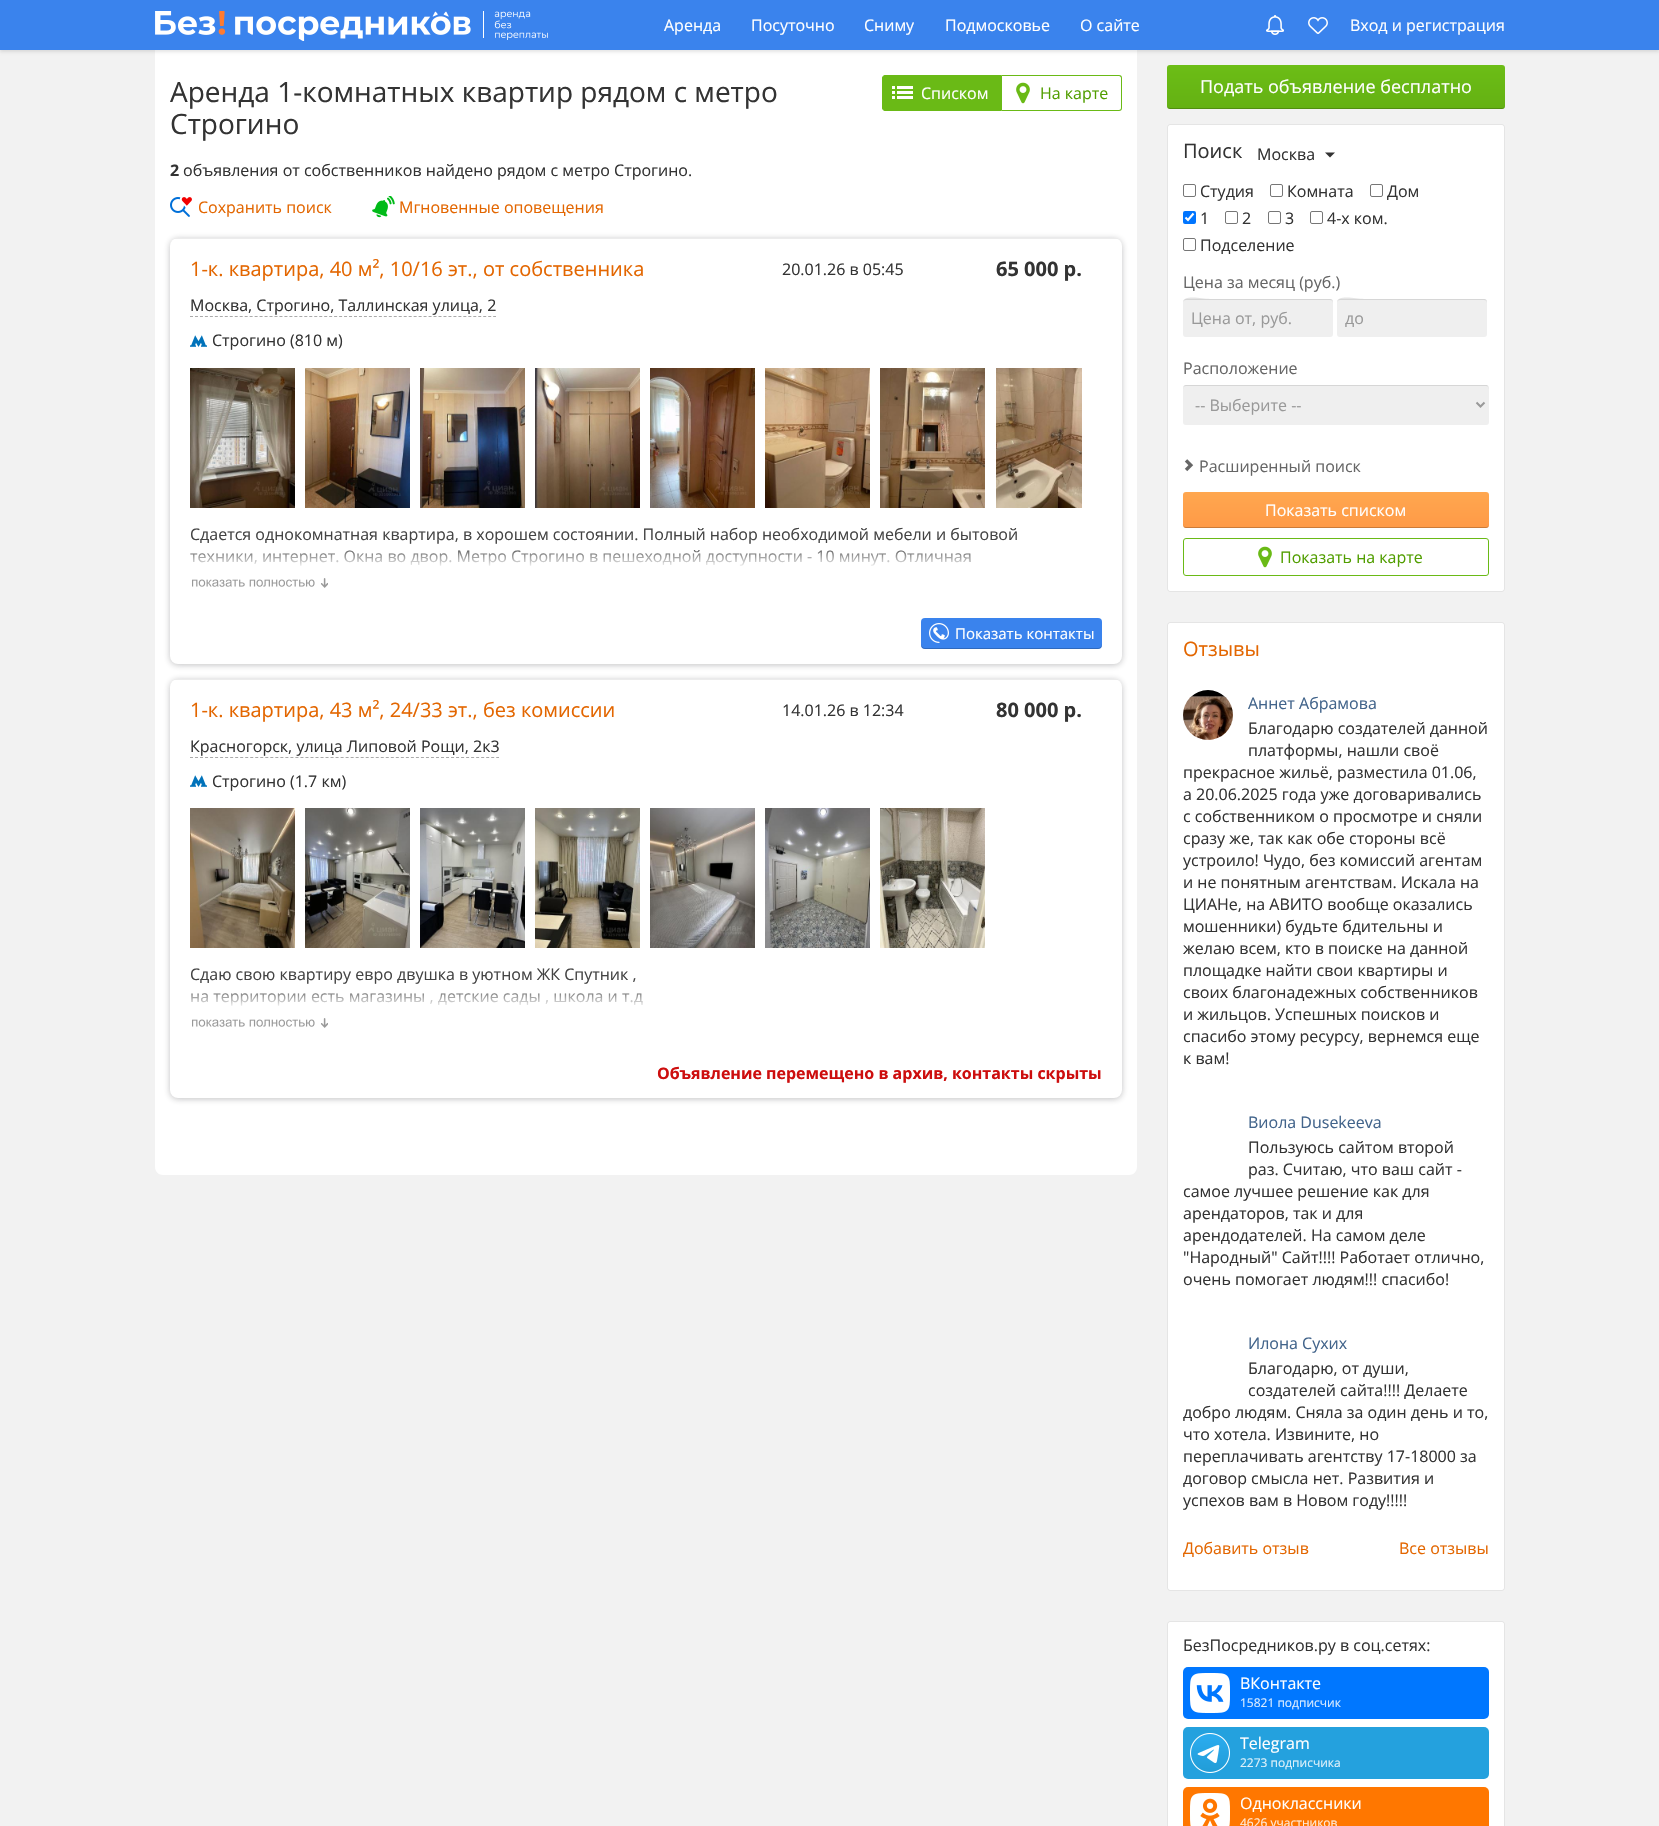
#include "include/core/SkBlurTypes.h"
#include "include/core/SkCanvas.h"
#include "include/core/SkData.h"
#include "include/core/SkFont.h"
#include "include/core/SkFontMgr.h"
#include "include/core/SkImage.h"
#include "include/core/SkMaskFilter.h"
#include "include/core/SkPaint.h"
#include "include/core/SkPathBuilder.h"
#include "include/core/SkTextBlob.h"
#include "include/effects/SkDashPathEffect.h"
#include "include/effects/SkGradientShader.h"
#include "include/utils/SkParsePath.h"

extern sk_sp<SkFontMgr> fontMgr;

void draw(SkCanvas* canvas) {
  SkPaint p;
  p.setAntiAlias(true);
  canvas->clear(SkColorSetRGB(242, 242, 242));
  p.setColor(SK_ColorWHITE);
  canvas->drawPath(SkPathBuilder().moveTo(155, 50).lineTo(1137, 50).lineTo(1137, 1167).cubicTo(1137, 1171.5f, 1133.5f, 1175, 1129, 1175).lineTo(163, 1175).cubicTo(158.5f, 1175, 155, 1171.5f, 155, 1167).close().detach(), p);
  p.setColor(SkColorSetARGB(26, 0, 0, 0));
  p.setMaskFilter(SkMaskFilter::MakeBlur(kNormal_SkBlurStyle, 1.5f));
  canvas->drawRect(SkRect::MakeLTRB(0, 2, 1659, 52), p);
  p.setMaskFilter(nullptr);
  p.setColor(SkColorSetRGB(58, 131, 237));
  canvas->drawRect(SkRect::MakeLTRB(0, 0, 1659, 50), p);
  canvas->drawImageRect(SkImages::DeferredFromEncodedData(SkData::MakeFromFileName("images/1.png")), SkRect::MakeLTRB(155, 11, 548, 41), SkSamplingOptions());
  canvas->drawImageRect(SkImages::DeferredFromEncodedData(SkData::MakeFromFileName("images/2.png")), SkRect::MakeLTRB(1266, 15, 1284, 35), SkSamplingOptions());
  canvas->drawImageRect(SkImages::DeferredFromEncodedData(SkData::MakeFromFileName("images/3.png")), SkRect::MakeLTRB(1308, 17, 1328, 34), SkSamplingOptions());
  p.setColor(SkColorSetRGB(106, 186, 22));
  canvas->drawPath(SkPathBuilder().moveTo(885, 75.5f).lineTo(1001.5f, 75.5f).lineTo(1001.5f, 110.5f).lineTo(885, 110.5f).cubicTo(883.5f, 110.5f, 882.5f, 109.5f, 882.5f, 108).lineTo(882.5f, 78).cubicTo(882.5f, 76.5f, 883.5f, 75.5f, 885, 75.5f).close().detach(), p);
  p.setStyle(SkPaint::kStroke_Style);
  p.setStrokeWidth(1);
  canvas->drawPath(SkPathBuilder().moveTo(885, 75.5f).lineTo(1001.5f, 75.5f).lineTo(1001.5f, 110.5f).lineTo(885, 110.5f).cubicTo(883.5f, 110.5f, 882.5f, 109.5f, 882.5f, 108).lineTo(882.5f, 78).cubicTo(882.5f, 76.5f, 883.5f, 75.5f, 885, 75.5f).close().detach(), p);
  canvas->drawImageRect(SkImages::DeferredFromEncodedData(SkData::MakeFromFileName("images/4.png")), SkRect::MakeLTRB(892, 86, 913, 99), SkSamplingOptions());
  p.setStyle(SkPaint::kFill_Style);
  canvas->drawPath(SkPathBuilder(SkPathFillType::kEvenOdd).moveTo(1002, 75).lineTo(1119, 75).cubicTo(1121, 75, 1122, 76, 1122, 78).lineTo(1122, 108).cubicTo(1122, 110, 1121, 111, 1119, 111).lineTo(1002, 111).close().moveTo(1002, 76).lineTo(1119, 76).cubicTo(1120, 76, 1121, 77, 1121, 78).lineTo(1121, 108).cubicTo(1121, 109, 1120, 110, 1119, 110).lineTo(1002, 110).close().detach(), p);
  canvas->drawImageRect(SkImages::DeferredFromEncodedData(SkData::MakeFromFileName("images/5.png")), SkRect::MakeLTRB(1016, 82, 1030, 104), SkSamplingOptions());
  canvas->drawImageRect(SkImages::DeferredFromEncodedData(SkData::MakeFromFileName("images/6.png")), SkRect::MakeLTRB(170, 197, 192, 217), SkSamplingOptions());
  canvas->drawImageRect(SkImages::DeferredFromEncodedData(SkData::MakeFromFileName("images/7.png")), SkRect::MakeLTRB(372, 196, 395, 218), SkSamplingOptions());
  p.setColor(SkColorSetARGB(71, 32, 33, 36));
  p.setMaskFilter(SkMaskFilter::MakeBlur(kNormal_SkBlurStyle, 3));
  canvas->drawRoundRect(SkRect::MakeLTRB(170, 239, 1122, 665), 8, 8, p);
  p.setMaskFilter(nullptr);
  p.setColor(SK_ColorWHITE);
  canvas->drawRoundRect(SkRect::MakeLTRB(170, 238, 1122, 664), 8, 8, p);
  p.setColor(SkColorSetRGB(236, 236, 236));
  canvas->drawRect(SkRect::MakeLTRB(174, 238, 1118, 239), p);
  p.setStyle(SkPaint::kStroke_Style);
  p.setColor(SkColorSetRGB(170, 170, 170));
  p.setPathEffect(SkDashPathEffect::Make({{3, 1.97f}}, 0));
  canvas->drawPath(SkPathBuilder().moveTo(190, 316.5f).lineTo(496, 316.5f).detach(), p);
  p.setPathEffect(nullptr);
  canvas->drawImageRect(SkImages::DeferredFromEncodedData(SkData::MakeFromFileName("images/8.png")), SkRect::MakeLTRB(190, 335, 207, 347), SkSamplingOptions());
  canvas->drawImageRect(SkImages::DeferredFromEncodedData(SkData::MakeFromFileName("images/9.png")), SkRect::MakeLTRB(190, 368, 295, 508), SkSamplingOptions());
  canvas->drawImageRect(SkImages::DeferredFromEncodedData(SkData::MakeFromFileName("images/10.png")), SkRect::MakeLTRB(305, 368, 410, 508), SkSamplingOptions());
  canvas->drawImageRect(SkImages::DeferredFromEncodedData(SkData::MakeFromFileName("images/11.png")), SkRect::MakeLTRB(420, 368, 525, 508), SkSamplingOptions());
  canvas->drawImageRect(SkImages::DeferredFromEncodedData(SkData::MakeFromFileName("images/12.png")), SkRect::MakeLTRB(535, 368, 640, 508), SkSamplingOptions());
  canvas->drawImageRect(SkImages::DeferredFromEncodedData(SkData::MakeFromFileName("images/13.png")), SkRect::MakeLTRB(650, 368, 755, 508), SkSamplingOptions());
  canvas->drawImageRect(SkImages::DeferredFromEncodedData(SkData::MakeFromFileName("images/14.png")), SkRect::MakeLTRB(765, 368, 870, 508), SkSamplingOptions());
  canvas->drawImageRect(SkImages::DeferredFromEncodedData(SkData::MakeFromFileName("images/15.png")), SkRect::MakeLTRB(880, 368, 985, 508), SkSamplingOptions());
  canvas->drawImageRect(SkImages::DeferredFromEncodedData(SkData::MakeFromFileName("images/16.png")), SkRect::MakeLTRB(996, 368, 1082, 508), SkSamplingOptions());
  canvas->drawImageRect(SkImages::DeferredFromEncodedData(SkData::MakeFromFileName("images/17.png")), SkRect::MakeLTRB(192, 578, 328, 588), SkSamplingOptions());
  p.setStyle(SkPaint::kFill_Style);
  p.setColor(SkColorSetRGB(58, 131, 237));
  canvas->drawRoundRect(SkRect::MakeLTRB(921, 618, 1102, 649), 4, 4, p);
  canvas->drawImageRect(SkImages::DeferredFromEncodedData(SkData::MakeFromFileName("images/18.png")), SkRect::MakeLTRB(929, 623, 949, 643), SkSamplingOptions());
  p.setColor(SkColorSetARGB(51, 0, 0, 0));
  canvas->drawPath(SkPathBuilder().moveTo(921, 644).lineTo(921, 645).cubicTo(921, 647, 923, 649, 925, 649).lineTo(1098, 649).cubicTo(1100, 649, 1102, 647, 1102, 645).lineTo(1102, 644).cubicTo(1102, 646, 1100, 648, 1098, 648).lineTo(925, 648).cubicTo(923, 648, 921, 646, 921, 644).close().detach(), p);
  p.setColor(SkColorSetARGB(71, 32, 33, 36));
  p.setMaskFilter(SkMaskFilter::MakeBlur(kNormal_SkBlurStyle, 3));
  canvas->drawRoundRect(SkRect::MakeLTRB(170, 680, 1122, 1099), 8, 8, p);
  p.setMaskFilter(nullptr);
  p.setColor(SK_ColorWHITE);
  canvas->drawRoundRect(SkRect::MakeLTRB(170, 679, 1122, 1098), 8, 8, p);
  p.setColor(SkColorSetRGB(236, 236, 236));
  canvas->drawRect(SkRect::MakeLTRB(174, 679, 1118, 680), p);
  p.setStyle(SkPaint::kStroke_Style);
  p.setColor(SkColorSetRGB(170, 170, 170));
  p.setPathEffect(SkDashPathEffect::Make({{3, 2.02f}}, 0));
  canvas->drawPath(SkPathBuilder().moveTo(190, 757.5f).lineTo(499, 757.5f).detach(), p);
  p.setPathEffect(nullptr);
  canvas->drawImageRect(SkImages::DeferredFromEncodedData(SkData::MakeFromFileName("images/8.png")), SkRect::MakeLTRB(190, 775, 207, 787), SkSamplingOptions());
  canvas->drawImageRect(SkImages::DeferredFromEncodedData(SkData::MakeFromFileName("images/19.png")), SkRect::MakeLTRB(190, 808, 295, 948), SkSamplingOptions());
  canvas->drawImageRect(SkImages::DeferredFromEncodedData(SkData::MakeFromFileName("images/20.png")), SkRect::MakeLTRB(305, 808, 410, 948), SkSamplingOptions());
  canvas->drawImageRect(SkImages::DeferredFromEncodedData(SkData::MakeFromFileName("images/21.png")), SkRect::MakeLTRB(420, 808, 525, 948), SkSamplingOptions());
  canvas->drawImageRect(SkImages::DeferredFromEncodedData(SkData::MakeFromFileName("images/22.png")), SkRect::MakeLTRB(535, 808, 640, 948), SkSamplingOptions());
  canvas->drawImageRect(SkImages::DeferredFromEncodedData(SkData::MakeFromFileName("images/23.png")), SkRect::MakeLTRB(650, 808, 755, 948), SkSamplingOptions());
  canvas->drawImageRect(SkImages::DeferredFromEncodedData(SkData::MakeFromFileName("images/24.png")), SkRect::MakeLTRB(765, 808, 870, 948), SkSamplingOptions());
  canvas->drawImageRect(SkImages::DeferredFromEncodedData(SkData::MakeFromFileName("images/25.png")), SkRect::MakeLTRB(880, 808, 985, 948), SkSamplingOptions());
  canvas->drawImageRect(SkImages::DeferredFromEncodedData(SkData::MakeFromFileName("images/17.png")), SkRect::MakeLTRB(192, 1018, 328, 1028), SkSamplingOptions());
  p.setStyle(SkPaint::kFill_Style);
  {
    const SkColor colors[] = {SkColorSetRGB(108, 189, 22), SkColorSetRGB(100, 177, 19)};
    const float stops[] = {0, 1};
    const SkPoint ends[] = {{1336, 65}, {1336, 109}};
    p.setShader(SkGradientShader::MakeLinear(ends, colors, stops, 2, SkTileMode::kClamp));
    p.setAlpha(255);
  }
  canvas->drawRoundRect(SkRect::MakeLTRB(1167, 65, 1505, 109), 3, 3, p);
  p.setShader(nullptr);
  p.setColor(SkColorSetARGB(51, 0, 0, 0));
  canvas->drawPath(SkPathBuilder().moveTo(1167, 105).cubicTo(1167, 107, 1168, 109, 1170, 109).lineTo(1502, 109).cubicTo(1504, 109, 1505, 107, 1505, 105).cubicTo(1505, 107, 1504, 108, 1502, 108).lineTo(1170, 108).cubicTo(1168, 108, 1167, 107, 1167, 105).close().detach(), p);
  p.setColor(SK_ColorWHITE);
  canvas->drawRoundRect(SkRect::MakeLTRB(1167, 124, 1505, 592), 3, 3, p);
  p.setStyle(SkPaint::kStroke_Style);
  p.setColor(SkColorSetARGB(26, 0, 0, 0));
  canvas->drawRoundRect(SkRect::MakeLTRB(1167.5f, 124.5f, 1504.5f, 591.5f), 2.5f, 2.5f, p);
  p.setStyle(SkPaint::kFill_Style);
  p.setColor(SkColorSetRGB(51, 51, 51));
  canvas->drawPath(SkPathBuilder().moveTo(1325, 152.5f).lineTo(1335, 152.5f).lineTo(1330, 157.5f).close().detach(), p);
  p.setStyle(SkPaint::kStroke_Style);
  p.setColor(SkColorSetRGB(118, 118, 118));
  canvas->drawRoundRect(SkRect::MakeLTRB(1183.5f, 184.5f, 1195.5f, 196.5f), 1.5f, 1.5f, p);
  canvas->drawRoundRect(SkRect::MakeLTRB(1270.5f, 184.5f, 1282.5f, 196.5f), 1.5f, 1.5f, p);
  canvas->drawRoundRect(SkRect::MakeLTRB(1370.5f, 184.5f, 1382.5f, 196.5f), 1.5f, 1.5f, p);
  p.setStyle(SkPaint::kFill_Style);
  p.setColor(SkColorSetRGB(0, 117, 255));
  canvas->drawRoundRect(SkRect::MakeLTRB(1183, 211, 1196, 224), 2, 2, p);
  p.setStyle(SkPaint::kStroke_Style);
  p.setStrokeWidth(2.1f);
  p.setColor(SK_ColorWHITE);
  canvas->drawPath(SkPathBuilder().moveTo(1185.5f, 217.5f).lineTo(1188, 220).lineTo(1193.5f, 213.5f).detach(), p);
  p.setStrokeWidth(1);
  p.setColor(SkColorSetRGB(118, 118, 118));
  canvas->drawRoundRect(SkRect::MakeLTRB(1225.5f, 211.5f, 1237.5f, 223.5f), 1.5f, 1.5f, p);
  canvas->drawRoundRect(SkRect::MakeLTRB(1268.5f, 211.5f, 1280.5f, 223.5f), 1.5f, 1.5f, p);
  canvas->drawRoundRect(SkRect::MakeLTRB(1310.5f, 211.5f, 1322.5f, 223.5f), 1.5f, 1.5f, p);
  canvas->drawRoundRect(SkRect::MakeLTRB(1183.5f, 238.5f, 1195.5f, 250.5f), 1.5f, 1.5f, p);
  p.setStyle(SkPaint::kFill_Style);
  p.setColor(SkColorSetRGB(239, 239, 239));
  canvas->drawRoundRect(SkRect::MakeLTRB(1183, 299, 1333, 337), 3, 3, p);
  p.setColor(SkColorSetARGB(26, 0, 0, 0));
  canvas->drawPath(SkPathBuilder().moveTo(1186, 300).lineTo(1330, 300).cubicTo(1332, 300, 1333, 301, 1333, 303).cubicTo(1333, 301, 1333, 300, 1331, 299).lineTo(1210, 299).cubicTo(1202, 299, 1183, 294, 1183, 303).cubicTo(1183, 301, 1184, 300, 1186, 300).close().detach(), p);
  p.setColor(SkColorSetRGB(239, 239, 239));
  canvas->drawRoundRect(SkRect::MakeLTRB(1337, 299, 1487, 337), 3, 3, p);
  p.setColor(SkColorSetARGB(26, 0, 0, 0));
  canvas->drawPath(SkPathBuilder().moveTo(1340, 300).lineTo(1484, 300).cubicTo(1486, 300, 1487, 301, 1487, 303).cubicTo(1487, 301, 1487, 300, 1485, 299).lineTo(1364, 299).cubicTo(1356, 299, 1337, 294, 1337, 303).cubicTo(1337, 301, 1338, 300, 1340, 300).close().detach(), p);
  p.setColor(SkColorSetRGB(239, 239, 239));
  canvas->drawRoundRect(SkRect::MakeLTRB(1183, 385, 1489, 425), 3, 3, p);
  p.setColor(SkColorSetARGB(26, 0, 0, 0));
  canvas->drawPath(SkPathBuilder().moveTo(1186, 386).lineTo(1486, 386).cubicTo(1488, 386, 1489, 387, 1489, 389).lineTo(1488, 386).lineTo(1487, 385).lineTo(1186, 385).cubicTo(1184, 385, 1183, 387, 1183, 389).cubicTo(1183, 387, 1184, 386, 1186, 386).close().detach(), p);
  p.setStyle(SkPaint::kStroke_Style);
  p.setStrokeWidth(2);
  p.setColor(SkColorSetRGB(153, 153, 153));
  canvas->drawPath(SkPathBuilder().moveTo(1476.5f, 402.5f).lineTo(1480.5f, 406.5f).lineTo(1484.5f, 402.5f).detach(), p);
  canvas->drawImageRect(SkImages::DeferredFromEncodedData(SkData::MakeFromFileName("images/26.png")), SkRect::MakeLTRB(1184, 459, 1194, 472), SkSamplingOptions());
  p.setStyle(SkPaint::kFill_Style);
  {
    const SkColor colors[] = {SkColorSetRGB(255, 167, 79), SkColorSetRGB(255, 154, 71)};
    const float stops[] = {0, 1};
    const SkPoint ends[] = {{1336, 492}, {1336, 528}};
    p.setShader(SkGradientShader::MakeLinear(ends, colors, stops, 2, SkTileMode::kClamp));
    p.setAlpha(255);
  }
  canvas->drawRoundRect(SkRect::MakeLTRB(1183, 492, 1489, 528), 3, 3, p);
  p.setShader(nullptr);
  p.setColor(SkColorSetARGB(51, 0, 0, 0));
  canvas->drawPath(SkPathBuilder().moveTo(1183, 524).lineTo(1184, 527).lineTo(1185, 528).lineTo(1486, 528).cubicTo(1488, 528, 1489, 526, 1489, 524).cubicTo(1489, 526, 1488, 527, 1486, 527).lineTo(1186, 527).cubicTo(1184, 527, 1183, 526, 1183, 524).close().detach(), p);
  p.setStyle(SkPaint::kStroke_Style);
  p.setStrokeWidth(1);
  p.setColor(SkColorSetRGB(106, 186, 22));
  canvas->drawRoundRect(SkRect::MakeLTRB(1183.5f, 538.5f, 1488.5f, 575.5f), 2.5f, 2.5f, p);
  canvas->drawImageRect(SkImages::DeferredFromEncodedData(SkData::MakeFromFileName("images/5.png")), SkRect::MakeLTRB(1258, 546, 1272, 568), SkSamplingOptions());
  p.setStyle(SkPaint::kFill_Style);
  p.setColor(SK_ColorWHITE);
  canvas->drawRoundRect(SkRect::MakeLTRB(1167, 622, 1505, 1591), 3, 3, p);
  p.setStyle(SkPaint::kStroke_Style);
  p.setColor(SkColorSetARGB(26, 0, 0, 0));
  canvas->drawRoundRect(SkRect::MakeLTRB(1167.5f, 622.5f, 1504.5f, 1590.5f), 2.5f, 2.5f, p);
  canvas->drawImageRect(SkImages::DeferredFromEncodedData(SkData::MakeFromFileName("images/27.png")), SkRect::MakeLTRB(1183, 690, 1233, 740), SkSamplingOptions());
  p.setStyle(SkPaint::kFill_Style);
  p.setColor(SK_ColorWHITE);
  canvas->drawRoundRect(SkRect::MakeLTRB(1167, 1621, 1505, 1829), 3, 3, p);
  p.setStyle(SkPaint::kStroke_Style);
  p.setColor(SkColorSetARGB(26, 0, 0, 0));
  canvas->drawRoundRect(SkRect::MakeLTRB(1167.5f, 1621.5f, 1504.5f, 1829.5f), 2.5f, 2.5f, p);
  p.setStyle(SkPaint::kFill_Style);
  p.setColor(SkColorSetRGB(0, 119, 255));
  canvas->drawRoundRect(SkRect::MakeLTRB(1183, 1667, 1489, 1719), 5, 5, p);
  canvas->drawImageRect(SkImages::DeferredFromEncodedData(SkData::MakeFromFileName("images/28.png")), SkRect::MakeLTRB(1190, 1673, 1230, 1713), SkSamplingOptions());
  p.setColor(SkColorSetRGB(36, 161, 222));
  canvas->drawRoundRect(SkRect::MakeLTRB(1183, 1727, 1489, 1779), 5, 5, p);
  canvas->drawImageRect(SkImages::DeferredFromEncodedData(SkData::MakeFromFileName("images/29.png")), SkRect::MakeLTRB(1190, 1733, 1230, 1773), SkSamplingOptions());
  p.setColor(SkColorSetRGB(255, 119, 0));
  canvas->drawRoundRect(SkRect::MakeLTRB(1183, 1787, 1489, 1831), 5, 5, p);
  canvas->drawImageRect(SkImages::DeferredFromEncodedData(SkData::MakeFromFileName("images/30.png")), SkRect::MakeLTRB(1190, 1793, 1230, 1826), SkSamplingOptions());
  SkFont font1(fontMgr->matchFamilyStyle("Open Sans", SkFontStyle::Normal()), 16);
  font1.setSubpixel(true);
  p.setColor(SK_ColorWHITE);
  canvas->drawString("Аренда", 664, 31, font1, p);
  canvas->drawString("Посуточно", 751, 31, font1, p);
  canvas->drawString("Сниму", 864, 31, font1, p);
  canvas->drawString("Подмосковье", 945, 31, font1, p);
  canvas->drawString("О сайте", 1080, 31, font1, p);
  canvas->drawString("Вход и регистрация", 1350, 31, font1, p);
  SkFont font2(fontMgr->matchFamilyStyle("Open Sans", SkFontStyle::Normal()), 28);
  font2.setSubpixel(true);
  p.setColor(SkColorSetRGB(51, 51, 51));
  canvas->drawString("Аренда 1-комнатных квартир рядом с метро", 170, 102, font2, p);
  canvas->drawString("Строгино", 170, 134, font2, p);
  p.setColor(SK_ColorWHITE);
  canvas->drawString("Списком", 921, 99, font1, p);
  p.setColor(SkColorSetRGB(81, 158, 0));
  canvas->drawString("На карте", 1040, 99, font1, p);
  SkFont font3(fontMgr->matchFamilyStyle("Open Sans", SkFontStyle::Bold()), 16);
  font3.setSubpixel(true);
  p.setColor(SkColorSetRGB(51, 51, 51));
  canvas->drawString("2", 170, 176, font3, p);
  canvas->drawString("объявления от собственников найдено рядом с метро Строгино.", 183, 176, font1, p);
  p.setColor(SkColorSetRGB(227, 102, 0));
  canvas->drawString("Сохранить поиск", 198, 213, font1, p);
  canvas->drawString("Мгновенные оповещения", 399, 213, font1, p);
  SkFont font4(fontMgr->matchFamilyStyle("Open Sans", SkFontStyle::Normal()), 20);
  font4.setSubpixel(true);
  canvas->drawString("1-к. квартира, 40 м², 10/16 эт., от собственника", 190, 276, font4, p);
  p.setColor(SkColorSetRGB(51, 51, 51));
  canvas->drawString("20.01.26 в 05:45", 782, 275, font1, p);
  SkFont font5(fontMgr->matchFamilyStyle("Open Sans", SkFontStyle::Bold()), 20);
  font5.setSubpixel(true);
  canvas->drawString("65 000 р.", 996, 276, font5, p);
  canvas->drawString("Москва, Строгино, Таллинская улица, 2", 190, 311, font1, p);
  canvas->drawString("Строгино (810 м)", 212, 346, font1, p);
  p.setColor(SkColorSetRGB(68, 68, 68));
  canvas->drawString("Сдается однокомнатная квартира, в хорошем состоянии. Полный набор необходимой мебели и бытовой", 190, 540, font1, p);
  canvas->drawString("техники, интернет. Окна во двор. Метро Строгино в пешеходной доступности - 10 минут. Отличная", 190, 562, font1, p);
  {
    const SkColor colors[] = {SkColorSetARGB(0, 255, 255, 255), SK_ColorWHITE};
    const float stops[] = {0, 1};
    const SkPoint ends[] = {{636, 546}, {636, 568}};
    p.setShader(SkGradientShader::MakeLinear(ends, colors, stops, 2, SkTileMode::kClamp));
    p.setAlpha(255);
  }
  canvas->drawRect(SkRect::MakeLTRB(190, 550, 970, 566), p);
  SkFont font6(fontMgr->matchFamilyStyle("Open Sans", SkFontStyle::Normal()), 15);
  font6.setSubpixel(true);
  p.setShader(nullptr);
  p.setColor(SK_ColorWHITE);
  canvas->drawString("Показать контакты", 955, 639, font6, p);
  p.setColor(SkColorSetRGB(227, 102, 0));
  canvas->drawString("1-к. квартира, 43 м², 24/33 эт., без комиссии", 190, 717, font4, p);
  p.setColor(SkColorSetRGB(51, 51, 51));
  canvas->drawString("14.01.26 в 12:34", 782, 716, font1, p);
  canvas->drawString("80 000 р.", 996, 717, font5, p);
  canvas->drawString("Красногорск, улица Липовой Рощи, 2к3", 190, 752, font1, p);
  canvas->drawString("Строгино (1.7 км)", 212, 787, font1, p);
  p.setColor(SkColorSetRGB(68, 68, 68));
  canvas->drawString("Сдаю свою квартиру евро двушка в уютном ЖК Спутник ,", 190, 980, font1, p);
  canvas->drawString("на территории есть магазины , детские сады , школа и т.д", 190, 1002, font1, p);
  {
    const SkColor colors[] = {SkColorSetARGB(0, 255, 255, 255), SK_ColorWHITE};
    const float stops[] = {0, 1};
    const SkPoint ends[] = {{636, 986}, {636, 1008}};
    p.setShader(SkGradientShader::MakeLinear(ends, colors, stops, 2, SkTileMode::kClamp));
    p.setAlpha(255);
  }
  canvas->drawRect(SkRect::MakeLTRB(190, 993, 643, 1006), p);
  p.setShader(nullptr);
  p.setColor(SkColorSetRGB(205, 14, 14));
  canvas->drawString("Объявление перемещено в архив, контакты скрыты", 657, 1079, font3, p);
  SkFont font7(fontMgr->matchFamilyStyle("Open Sans", SkFontStyle::Normal()), 18);
  font7.setSubpixel(true);
  p.setColor(SK_ColorWHITE);
  canvas->drawString("Подать объявление бесплатно", 1200, 93, font7, p);
  p.setColor(SkColorSetRGB(51, 51, 51));
  canvas->drawString("Поиск", 1183, 158, font4, p);
  canvas->drawString("Москва", 1257, 160, font1, p);
  canvas->drawString("Студия", 1200, 197, font1, p);
  canvas->drawString("Комната", 1287, 197, font1, p);
  canvas->drawString("Дом", 1387, 197, font1, p);
  canvas->drawString("1", 1200, 224, font1, p);
  canvas->drawString("2", 1242, 224, font1, p);
  canvas->drawString("3", 1285, 224, font1, p);
  canvas->drawString("4-х ком.", 1327, 224, font1, p);
  canvas->drawString("Подселение", 1200, 251, font1, p);
  p.setColor(SkColorSetRGB(102, 102, 102));
  canvas->drawString("Цена за месяц (руб.)", 1183, 288, font1, p);
  p.setColor(SkColorSetRGB(153, 153, 153));
  canvas->drawString("Цена от, руб.", 1191, 324, font1, p);
  canvas->drawString("до", 1345, 324, font1, p);
  p.setColor(SkColorSetRGB(102, 102, 102));
  canvas->drawString("Расположение", 1183, 374, font1, p);
  p.setColor(SkColorSetRGB(153, 153, 153));
  canvas->drawString("-- Выберите --", 1195, 411, font1, p);
  p.setColor(SkColorSetRGB(102, 102, 102));
  canvas->drawString("Расширенный поиск", 1199, 472, font1, p);
  p.setColor(SK_ColorWHITE);
  canvas->drawString("Показать списком", 1265, 516, font1, p);
  p.setColor(SkColorSetRGB(81, 158, 0));
  canvas->drawString("Показать на карте", 1280, 563, font1, p);
  p.setColor(SkColorSetRGB(227, 102, 0));
  canvas->drawString("Отзывы", 1183, 656, font4, p);
  p.setColor(SkColorSetRGB(66, 100, 139));
  canvas->drawString("Аннет Абрамова", 1248, 709, font1, p);
  p.setColor(SkColorSetRGB(51, 51, 51));
  canvas->drawString("Благодарю создателей данной", 1248, 734, font1, p);
  canvas->drawString("платформы, нашли своё", 1248, 756, font1, p);
  canvas->drawString("прекрасное жильё, разместила 01.06,", 1183, 778, font1, p);
  canvas->drawString("а 20.06.2025 года уже договаривались", 1183, 800, font1, p);
  canvas->drawString("с собственником о просмотре и сняли", 1183, 822, font1, p);
  canvas->drawString("сразу же, так как обе стороны всё", 1183, 844, font1, p);
  canvas->drawString("устроило! Чудо, без комиссий агентам", 1183, 866, font1, p);
  canvas->drawString("и не понятным агентствам. Искала на", 1183, 888, font1, p);
  canvas->drawString("ЦИАНе, на АВИТО вообще оказались", 1183, 910, font1, p);
  canvas->drawString("мошенники) будьте бдительны и", 1183, 932, font1, p);
  canvas->drawString("желаю всем, кто в поиске на данной", 1183, 954, font1, p);
  canvas->drawString("площадке найти свои квартиры и", 1183, 976, font1, p);
  canvas->drawString("своих благонадежных собственников", 1183, 998, font1, p);
  canvas->drawString("и жильцов. Успешных поисков и", 1183, 1020, font1, p);
  canvas->drawString("спасибо этому ресурсу, вернемся еще", 1183, 1042, font1, p);
  canvas->drawString("к вам!", 1183, 1064, font1, p);
  p.setColor(SkColorSetRGB(66, 100, 139));
  canvas->drawString("Виола Dusekeeva", 1248, 1128, font1, p);
  p.setColor(SkColorSetRGB(51, 51, 51));
  canvas->drawString("Пользуюсь сайтом второй", 1248, 1153, font1, p);
  canvas->drawString("раз. Считаю, что ваш сайт -", 1248, 1175, font1, p);
  canvas->drawString("самое лучшее решение как для", 1183, 1197, font1, p);
  canvas->drawString("арендаторов, так и для", 1183, 1219, font1, p);
  canvas->drawString("арендодателей. На самом деле", 1183, 1241, font1, p);
  canvas->drawString("\"Народный\" Сайт!!!! Работает отлично,", 1183, 1263, font1, p);
  canvas->drawString("очень помогает людям!!! спасибо!", 1183, 1285, font1, p);
  p.setColor(SkColorSetRGB(66, 100, 139));
  canvas->drawString("Илона Сухих", 1248, 1349, font1, p);
  p.setColor(SkColorSetRGB(51, 51, 51));
  canvas->drawString("Благодарю, от души,", 1248, 1374, font1, p);
  canvas->drawString("создателей сайта!!!! Делаете", 1248, 1396, font1, p);
  canvas->drawString("добро людям. Сняла за один день и то,", 1183, 1418, font1, p);
  canvas->drawString("что хотела. Извините, но", 1183, 1440, font1, p);
  canvas->drawString("переплачивать агентству 17-18000 за", 1183, 1462, font1, p);
  canvas->drawString("договор смысла нет. Развития и", 1183, 1484, font1, p);
  canvas->drawString("успехов вам в Новом году!!!!!", 1183, 1506, font1, p);
  p.setColor(SkColorSetRGB(227, 102, 0));
  canvas->drawString("Добавить отзыв", 1183, 1554, font1, p);
  canvas->drawString("Все отзывы", 1399, 1554, font1, p);
  p.setColor(SkColorSetRGB(51, 51, 51));
  canvas->drawString("БезПосредников.ру в соц.сетях:", 1183, 1651, font1, p);
  p.setColor(SK_ColorWHITE);
  canvas->drawString("ВКонтакте", 1240, 1689, font1, p);
  SkFont font8(fontMgr->matchFamilyStyle("Open Sans", SkFontStyle::Normal()), 12);
  font8.setSubpixel(true);
  p.setColor(SkColorSetRGB(217, 235, 255));
  canvas->drawString("15821 подписчик", 1240, 1707, font8, p);
  p.setColor(SK_ColorWHITE);
  canvas->drawString("Telegram", 1240, 1749, font1, p);
  p.setColor(SkColorSetRGB(222, 241, 250));
  canvas->drawString("2273 подписчика", 1240, 1767, font8, p);
  p.setColor(SK_ColorWHITE);
  canvas->drawString("Одноклассники", 1240, 1809, font1, p);
  p.setColor(SkColorSetRGB(255, 235, 217));
  canvas->drawString("4626 участников", 1240, 1827, font8, p);
}
